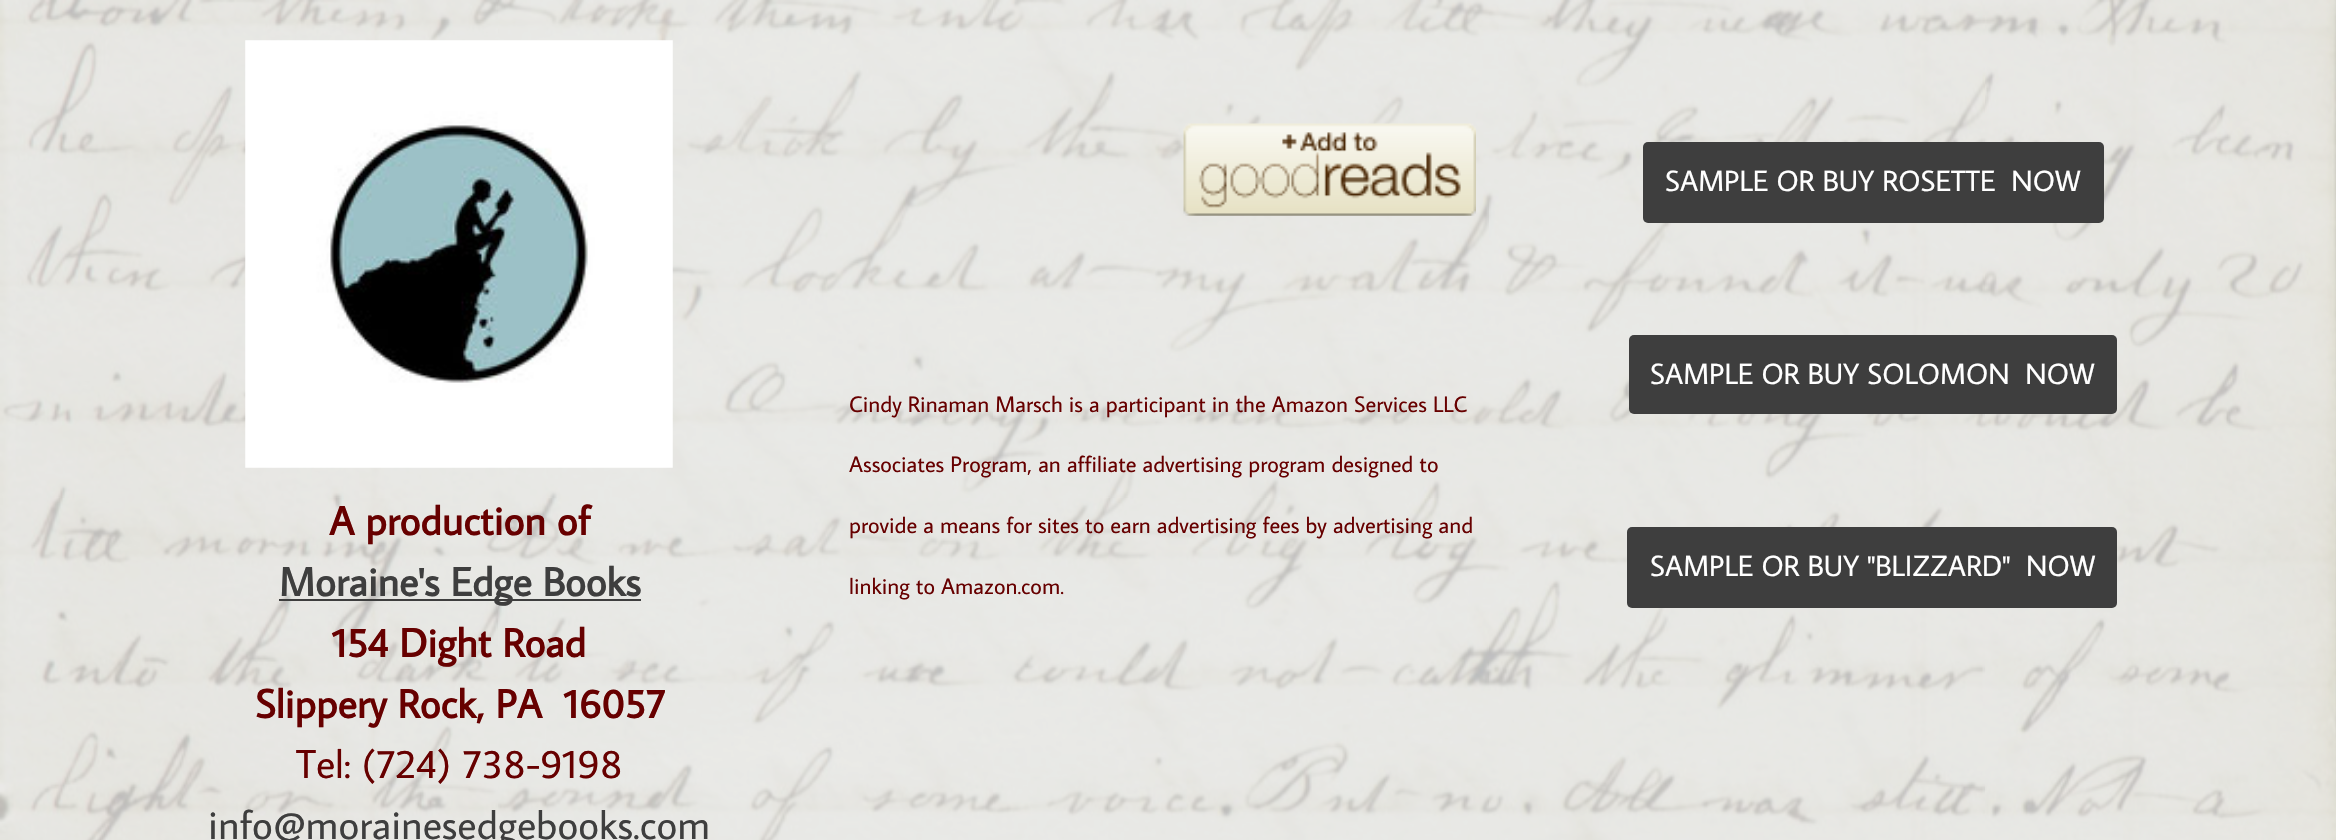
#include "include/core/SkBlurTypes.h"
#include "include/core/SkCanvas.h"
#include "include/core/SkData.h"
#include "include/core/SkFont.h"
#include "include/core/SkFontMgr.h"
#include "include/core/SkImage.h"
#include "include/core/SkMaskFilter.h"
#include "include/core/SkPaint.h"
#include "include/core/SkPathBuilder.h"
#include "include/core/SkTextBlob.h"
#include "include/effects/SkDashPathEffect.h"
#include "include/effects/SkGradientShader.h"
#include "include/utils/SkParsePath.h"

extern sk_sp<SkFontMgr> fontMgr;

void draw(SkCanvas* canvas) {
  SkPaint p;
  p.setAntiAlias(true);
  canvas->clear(SK_ColorWHITE);
  canvas->drawImageRect(SkImages::DeferredFromEncodedData(SkData::MakeFromFileName("images/1.png")), SkRect::MakeLTRB(0, 0, 2336, 840), SkSamplingOptions());
  canvas->drawImageRect(SkImages::DeferredFromEncodedData(SkData::MakeFromFileName("images/2.png")), SkRect::MakeLTRB(245, 40, 673, 468), SkSamplingOptions());
  p.setColor(SkColorSetRGB(62, 62, 62));
  canvas->drawRect(SkRect::MakeLTRB(279, 599, 641, 601), p);
  canvas->drawImageRect(SkImages::DeferredFromEncodedData(SkData::MakeFromFileName("images/3.png")), SkRect::MakeLTRB(1183, 123, 1476, 216), SkSamplingOptions());
  canvas->drawRoundRect(SkRect::MakeLTRB(1643, 142, 2104, 223), 5, 5, p);
  canvas->drawRoundRect(SkRect::MakeLTRB(1629, 335, 2117, 414), 5, 5, p);
  canvas->drawRoundRect(SkRect::MakeLTRB(1627, 527, 2117, 608), 5, 5, p);
  SkFont font1(fontMgr->matchFamilyStyle("Average Sans", SkFontStyle::Bold()), 40.5f);
  font1.setSubpixel(true);
  p.setColor(SkColorSetRGB(103, 0, 0));
  canvas->drawString("A production of", 329, 535, font1, p);
  p.setColor(SkColorSetRGB(62, 62, 62));
  canvas->drawString("Moraine's Edge Books", 279, 596, font1, p);
  p.setColor(SkColorSetRGB(103, 0, 0));
  canvas->drawString("154 Dight Road", 332, 657, font1, p);
  canvas->drawString("Slippery Rock, PA  16057", 255, 718, font1, p);
  SkFont font2(fontMgr->matchFamilyStyle("Average Sans", SkFontStyle::Normal()), 40.5f);
  font2.setSubpixel(true);
  canvas->drawString("Tel: (724) 738-9198", 296, 778, font2, p);
  p.setColor(SkColorSetRGB(62, 62, 62));
  canvas->drawString("info@morainesedgebooks.com", 208, 839, font2, p);
  SkFont font3(fontMgr->matchFamilyStyle("Average Sans", SkFontStyle::Normal()), 22.5f);
  font3.setSubpixel(true);
  p.setColor(SkColorSetRGB(103, 0, 0));
  canvas->drawString("Cindy Rinaman Marsch is a participant in the Amazon Services LLC", 849, 412, font3, p);
  canvas->drawString("Associates Program, an affiliate advertising program designed to", 849, 472, font3, p);
  canvas->drawString("provide a means for sites to earn advertising fees by advertising and", 849, 533, font3, p);
  canvas->drawString("linking to Amazon.com.", 849, 594, font3, p);
  SkFont font4(fontMgr->matchFamilyStyle("Average Sans", SkFontStyle::Normal()), 29.25f);
  font4.setSubpixel(true);
  p.setColor(SK_ColorWHITE);
  canvas->drawString("SAMPLE OR BUY ROSETTE  NOW", 1665, 191, font4, p);
  canvas->drawString("SAMPLE OR BUY SOLOMON  NOW", 1650, 384, font4, p);
  canvas->drawString("SAMPLE OR BUY \"BLIZZARD\"  NOW", 1650, 576, font4, p);
}
